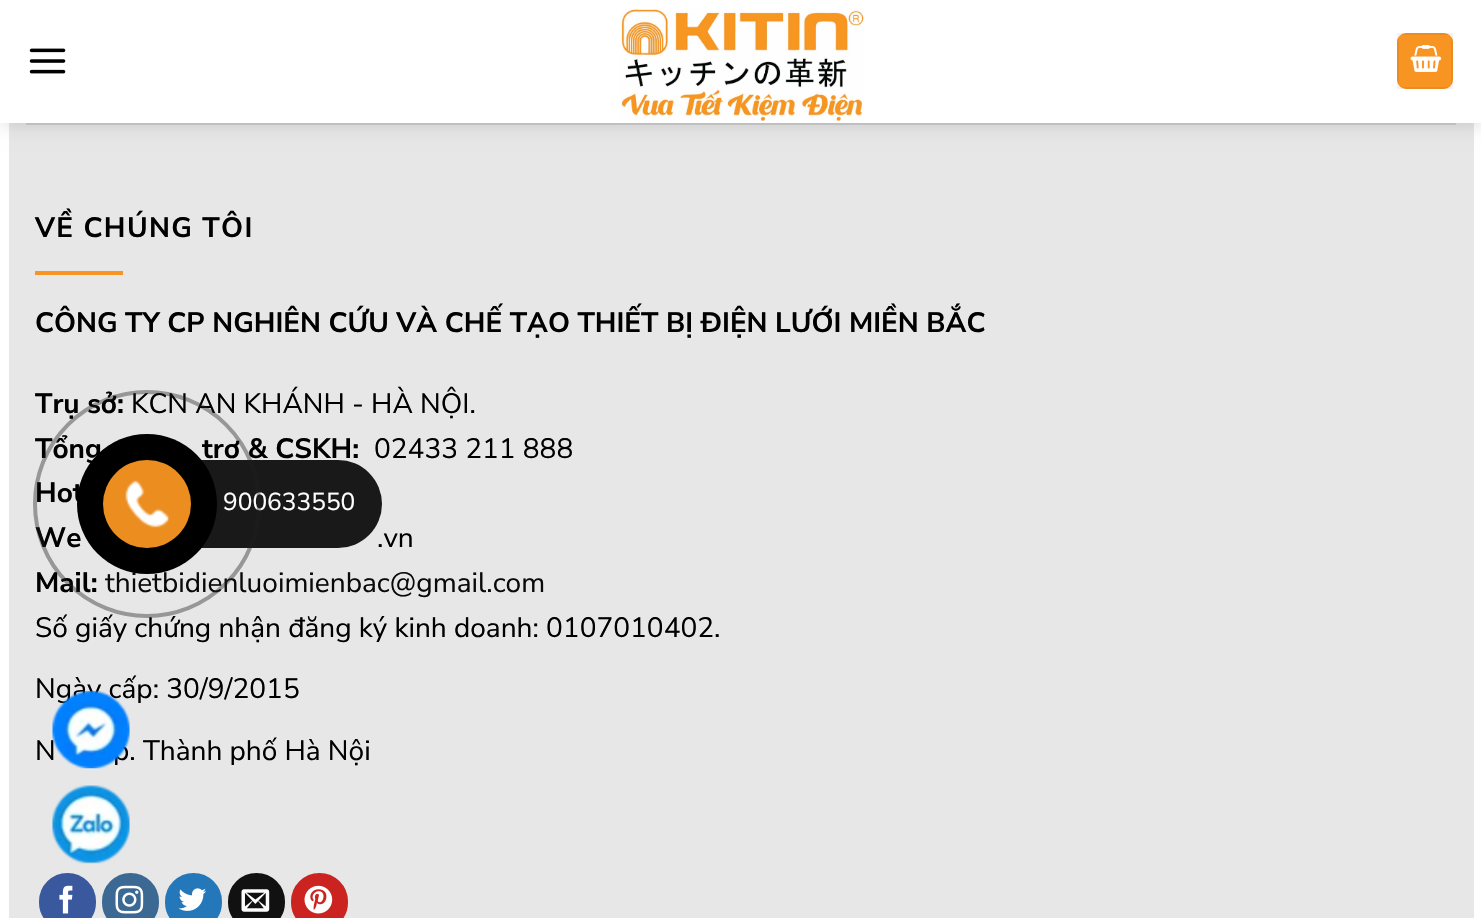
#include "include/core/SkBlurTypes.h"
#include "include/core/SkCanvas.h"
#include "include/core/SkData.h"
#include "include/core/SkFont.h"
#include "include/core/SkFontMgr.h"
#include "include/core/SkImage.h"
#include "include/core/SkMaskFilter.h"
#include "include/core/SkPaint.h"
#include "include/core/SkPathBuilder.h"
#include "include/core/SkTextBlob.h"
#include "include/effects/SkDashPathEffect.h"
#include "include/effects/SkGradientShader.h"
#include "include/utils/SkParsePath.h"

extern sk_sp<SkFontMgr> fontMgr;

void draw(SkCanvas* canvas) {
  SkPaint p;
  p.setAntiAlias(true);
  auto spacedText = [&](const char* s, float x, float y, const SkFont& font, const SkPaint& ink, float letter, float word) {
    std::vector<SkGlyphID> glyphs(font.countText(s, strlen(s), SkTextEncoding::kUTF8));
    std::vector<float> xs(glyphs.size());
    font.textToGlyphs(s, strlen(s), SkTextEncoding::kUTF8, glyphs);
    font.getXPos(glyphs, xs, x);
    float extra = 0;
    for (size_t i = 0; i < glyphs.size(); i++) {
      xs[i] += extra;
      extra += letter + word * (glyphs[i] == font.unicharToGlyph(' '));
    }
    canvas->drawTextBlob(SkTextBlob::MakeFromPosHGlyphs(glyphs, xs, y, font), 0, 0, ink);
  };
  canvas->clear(SK_ColorWHITE);
  p.setColor(SkColorSetRGB(231, 231, 231));
  canvas->drawRect(SkRect::MakeLTRB(9, 123, 1474, 918), p);
  p.setColor(SkColorSetARGB(38, 0, 0, 0));
  p.setMaskFilter(SkMaskFilter::MakeBlur(kNormal_SkBlurStyle, 9));
  canvas->drawRect(SkRect::MakeLTRB(2, 2, 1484, 124), p);
  p.setMaskFilter(nullptr);
  p.setColor(SK_ColorWHITE);
  canvas->drawRect(SkRect::MakeLTRB(0, 0, 1481, 123), p);
  canvas->drawImageRect(SkImages::DeferredFromEncodedData(SkData::MakeFromFileName("images/1.png")), SkRect::MakeLTRB(29, 48, 66, 74), SkSamplingOptions());
  canvas->drawImageRect(SkImages::DeferredFromEncodedData(SkData::MakeFromFileName("images/2.png")), SkRect::MakeLTRB(620, 9, 864, 121), SkSamplingOptions());
  p.setColor(SkColorSetRGB(248, 148, 34));
  canvas->drawRoundRect(SkRect::MakeLTRB(1397, 33, 1453, 89), 9, 9, p);
  p.setStyle(SkPaint::kStroke_Style);
  p.setStrokeWidth(2);
  p.setColor(SkColorSetARGB(13, 0, 0, 0));
  canvas->drawRect(SkRect::MakeLTRB(1398, 34, 1452, 88), p);
  canvas->drawImageRect(SkImages::DeferredFromEncodedData(SkData::MakeFromFileName("images/3.png")), SkRect::MakeLTRB(1410, 45, 1442, 72), SkSamplingOptions());
  p.setStyle(SkPaint::kFill_Style);
  p.setColor(SkColorSetARGB(26, 0, 0, 0));
  canvas->drawRect(SkRect::MakeLTRB(26, 123, 1456, 125), p);
  p.setColor(SkColorSetRGB(248, 148, 34));
  canvas->drawRect(SkRect::MakeLTRB(35, 271, 123, 275), p);
  p.setColor(SkColorSetRGB(58, 88, 157));
  canvas->drawRoundRect(SkRect::MakeLTRB(40, 874, 95, 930), 27.5f, 27.5f, p);
  p.setStyle(SkPaint::kStroke_Style);
  canvas->drawRoundRect(SkRect::MakeLTRB(40, 874, 95, 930), 27.5f, 27.5f, p);
  canvas->drawImageRect(SkImages::DeferredFromEncodedData(SkData::MakeFromFileName("images/4.png")), SkRect::MakeLTRB(59, 885, 73, 914), SkSamplingOptions());
  p.setStyle(SkPaint::kFill_Style);
  p.setColor(SkColorSetRGB(59, 105, 148));
  canvas->drawRoundRect(SkRect::MakeLTRB(103, 874, 158, 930), 27.5f, 27.5f, p);
  p.setStyle(SkPaint::kStroke_Style);
  canvas->drawRoundRect(SkRect::MakeLTRB(103, 874, 158, 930), 27.5f, 27.5f, p);
  canvas->drawImageRect(SkImages::DeferredFromEncodedData(SkData::MakeFromFileName("images/5.png")), SkRect::MakeLTRB(115, 885, 144, 914), SkSamplingOptions());
  p.setStyle(SkPaint::kFill_Style);
  p.setColor(SkColorSetRGB(36, 120, 186));
  canvas->drawRoundRect(SkRect::MakeLTRB(166, 874, 221, 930), 27.5f, 27.5f, p);
  p.setStyle(SkPaint::kStroke_Style);
  canvas->drawRoundRect(SkRect::MakeLTRB(166, 874, 221, 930), 27.5f, 27.5f, p);
  canvas->drawImageRect(SkImages::DeferredFromEncodedData(SkData::MakeFromFileName("images/6.png")), SkRect::MakeLTRB(178, 888, 206, 911), SkSamplingOptions());
  p.setStyle(SkPaint::kFill_Style);
  p.setColor(SkColorSetRGB(17, 17, 17));
  canvas->drawRoundRect(SkRect::MakeLTRB(229, 874, 284, 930), 27.5f, 27.5f, p);
  p.setStyle(SkPaint::kStroke_Style);
  canvas->drawRoundRect(SkRect::MakeLTRB(229, 874, 284, 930), 27.5f, 27.5f, p);
  canvas->drawImageRect(SkImages::DeferredFromEncodedData(SkData::MakeFromFileName("images/7.png")), SkRect::MakeLTRB(241, 889, 270, 912), SkSamplingOptions());
  p.setStyle(SkPaint::kFill_Style);
  p.setColor(SkColorSetRGB(203, 35, 32));
  canvas->drawRoundRect(SkRect::MakeLTRB(292, 874, 347, 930), 27.5f, 27.5f, p);
  p.setStyle(SkPaint::kStroke_Style);
  canvas->drawRoundRect(SkRect::MakeLTRB(292, 874, 347, 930), 27.5f, 27.5f, p);
  canvas->drawImageRect(SkImages::DeferredFromEncodedData(SkData::MakeFromFileName("images/8.png")), SkRect::MakeLTRB(304, 885, 333, 914), SkSamplingOptions());
  canvas->drawImageRect(SkImages::DeferredFromEncodedData(SkData::MakeFromFileName("images/11.png")), SkRect::MakeLTRB(52, 785, 130, 864), SkSamplingOptions());
  SkFont font1(fontMgr->matchFamilyStyle("Nunito Sans", SkFontStyle::Bold()), 28);
  font1.setSubpixel(true);
  p.setStyle(SkPaint::kFill_Style);
  p.setColor(SK_ColorBLACK);
  spacedText("VỀ CHÚNG TÔI", 35, 237, font1, p, 1.4f, 0);
  canvas->drawString("CÔNG TY CP NGHIÊN CỨU VÀ CHẾ TẠO THIẾT BỊ ĐIỆN LƯỚI MIỀN BẮC", 35, 332, font1, p);
  canvas->drawString("Trụ sở:", 35, 413, font1, p);
  SkFont font2(fontMgr->matchFamilyStyle("Nunito Sans", SkFontStyle::Normal()), 28);
  font2.setSubpixel(true);
  canvas->drawString("KCN AN KHÁNH - HÀ NỘI.", 131, 413, font2, p);
  canvas->drawString("Tổng", 35, 458, font1, p);
  canvas->drawString("trợ & CSKH:", 202, 458, font1, p);
  canvas->drawString("02433 211 888", 374, 458, font2, p);
  canvas->drawString("Hot", 35, 502, font1, p);
  canvas->drawString("We", 35, 547, font1, p);
  canvas->drawString(".vn", 377, 547, font2, p);
  canvas->drawString("Mail:", 35, 592, font1, p);
  p.setColor(SkColorSetRGB(10, 10, 10));
  canvas->drawString("thietbidienluoimienbac@gmail.com", 105, 592, font2, p);
  p.setColor(SK_ColorBLACK);
  canvas->drawString("Số giấy chứng nhận đăng ký kinh doanh: 0107010402.", 35, 637, font2, p);
  canvas->drawString("Ngày cấp: 30/9/2015", 35, 698, font2, p);
  canvas->drawString("N", 35, 760, font2, p);
  canvas->drawString("p. Thành phố Hà Nội", 113, 760, font2, p);
  p.setColor(SkColorSetRGB(26, 25, 25));
  canvas->drawRoundRect(SkRect::MakeLTRB(103, 460, 382, 548), 44, 44, p);
  SkFont font3(fontMgr->matchFamilyStyle("Nunito Sans", SkFontStyle::Normal()), 24.5f);
  font3.setSubpixel(true);
  p.setColor(SK_ColorWHITE);
  canvas->drawString("900633550", 223, 510, font3, p);
  p.setStyle(SkPaint::kStroke_Style);
  p.setStrokeWidth(4);
  p.setColor(SkColorSetARGB(102, 30, 30, 30));
  canvas->drawCircle(147, 504, 112, p);
  p.setStyle(SkPaint::kFill_Style);
  p.setColor(SK_ColorBLACK);
  canvas->drawCircle(147, 504, 70, p);
  p.setColor(SkColorSetRGB(236, 141, 32));
  canvas->drawCircle(147, 504, 44, p);
  canvas->drawImageRect(SkImages::DeferredFromEncodedData(SkData::MakeFromFileName("images/9.png")), SkRect::MakeLTRB(125, 480, 170, 528), SkSamplingOptions());
  canvas->drawImageRect(SkImages::DeferredFromEncodedData(SkData::MakeFromFileName("images/10.png")), SkRect::MakeLTRB(52, 691, 130, 769), SkSamplingOptions());
}
